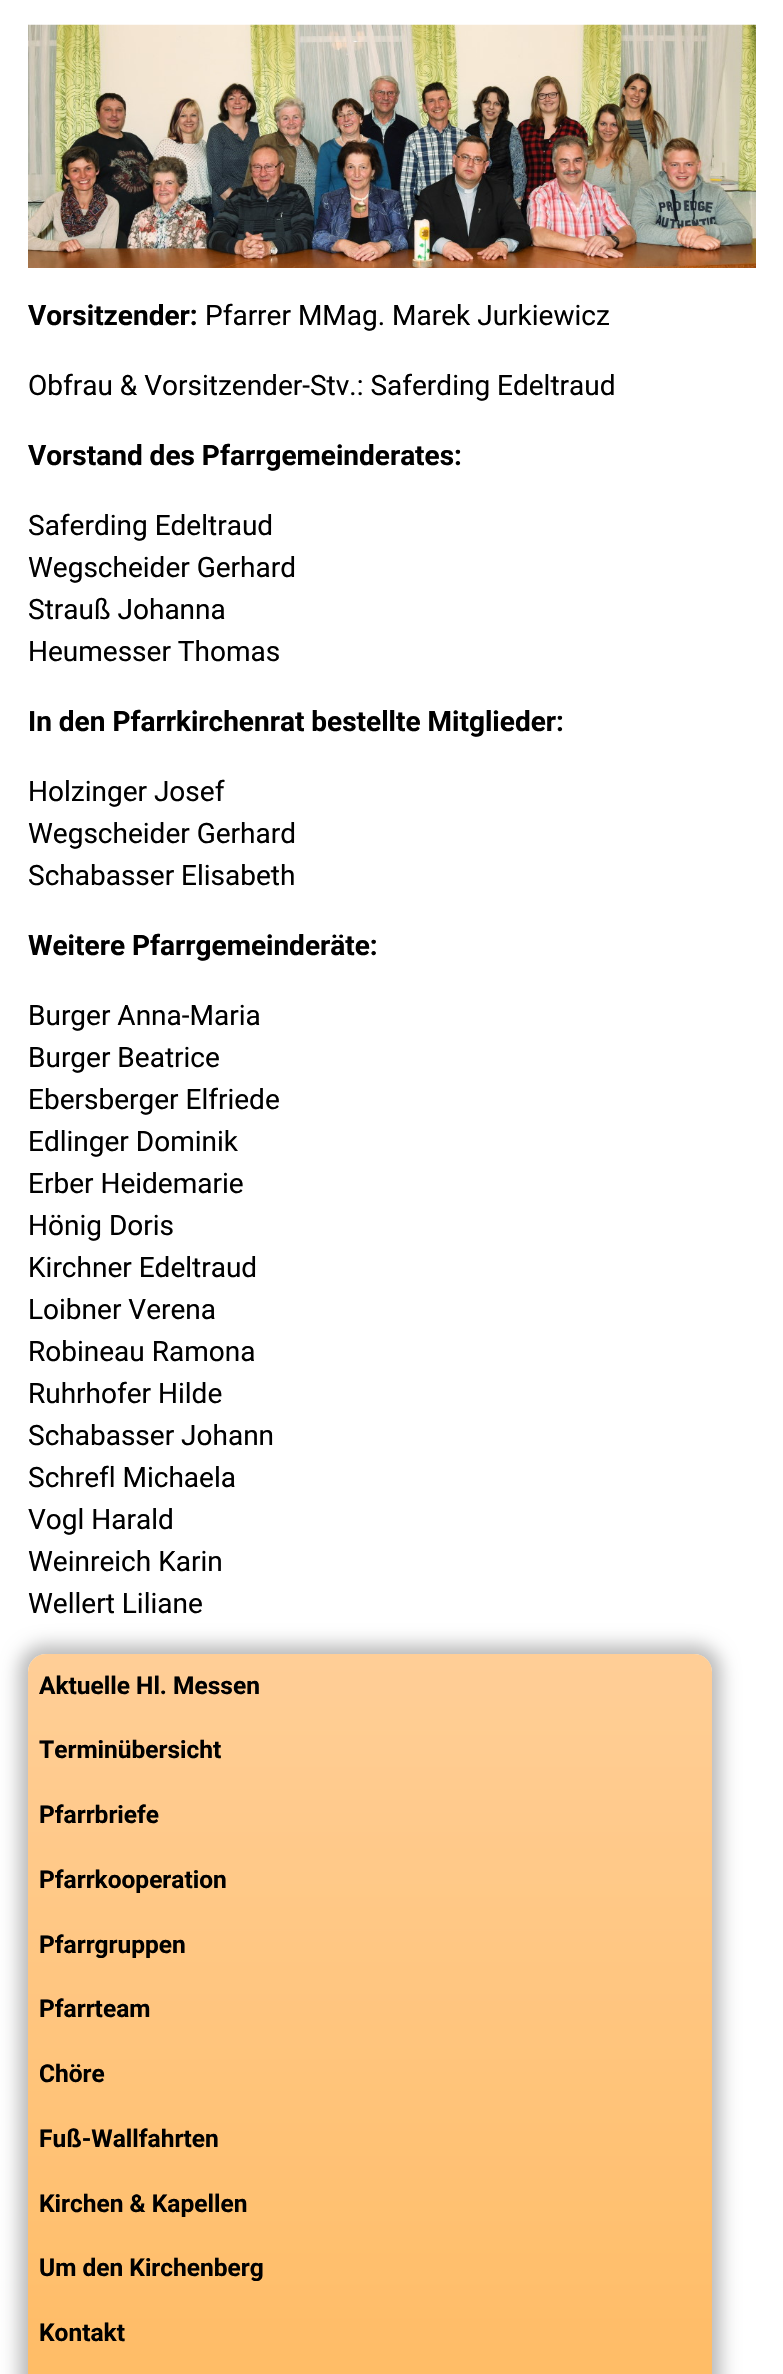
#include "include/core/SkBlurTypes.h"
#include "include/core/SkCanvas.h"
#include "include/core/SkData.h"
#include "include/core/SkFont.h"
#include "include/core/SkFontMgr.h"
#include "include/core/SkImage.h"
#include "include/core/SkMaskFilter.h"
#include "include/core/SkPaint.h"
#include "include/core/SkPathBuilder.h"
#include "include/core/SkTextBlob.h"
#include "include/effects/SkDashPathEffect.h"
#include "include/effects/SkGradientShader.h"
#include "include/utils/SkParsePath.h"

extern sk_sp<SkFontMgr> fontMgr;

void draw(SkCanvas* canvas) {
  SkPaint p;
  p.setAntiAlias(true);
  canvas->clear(SK_ColorWHITE);
  canvas->drawImageRect(SkImages::DeferredFromEncodedData(SkData::MakeFromFileName("images/1.png")), SkRect::MakeLTRB(28, 24, 756, 268), SkSamplingOptions());
  canvas->save();
  canvas->clipPath(SkPathBuilder(SkPathFillType::kEvenOdd).moveTo(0, 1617).lineTo(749, 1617).lineTo(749, 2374).lineTo(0, 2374).close().moveTo(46, 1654).lineTo(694, 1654).cubicTo(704, 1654, 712, 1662, 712, 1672).lineTo(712, 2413).cubicTo(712, 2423, 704, 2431, 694, 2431).lineTo(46, 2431).cubicTo(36, 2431, 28, 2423, 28, 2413).lineTo(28, 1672).cubicTo(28, 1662, 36, 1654, 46, 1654).close().detach(), true);
  p.setColor(SkColorSetRGB(186, 186, 186));
  p.setMaskFilter(SkMaskFilter::MakeBlur(kNormal_SkBlurStyle, 9));
  canvas->drawRoundRect(SkRect::MakeLTRB(19, 1645, 721, 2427), 26, 26, p);
  p.setMaskFilter(nullptr);
  canvas->restore();
  {
    const SkColor colors[] = {SkColorSetARGB(204, 255, 194, 125), SkColorSetARGB(204, 255, 170, 59)};
    const float stops[] = {0, 1};
    const SkPoint ends[] = {{370, 1654}, {370, 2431}};
    p.setShader(SkGradientShader::MakeLinear(ends, colors, stops, 2, SkTileMode::kClamp));
    p.setAlpha(255);
  }
  canvas->drawRoundRect(SkRect::MakeLTRB(28, 1654, 712, 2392), 18, 18, p);
  SkFont font1(fontMgr->matchFamilyStyle("Roboto", SkFontStyle::Bold()), 28);
  font1.setSubpixel(true);
  p.setShader(nullptr);
  p.setColor(SK_ColorBLACK);
  canvas->drawString("Vorsitzender:", 28, 325, font1, p);
  SkFont font2(fontMgr->matchFamilyStyle("Roboto", SkFontStyle::Normal()), 28);
  font2.setSubpixel(true);
  canvas->drawString("Pfarrer MMag. Marek Jurkiewicz", 205, 325, font2, p);
  canvas->drawString("Obfrau & Vorsitzender-Stv.: Saferding Edeltraud", 28, 395, font2, p);
  canvas->drawString("Vorstand des Pfarrgemeinderates:", 28, 465, font1, p);
  canvas->drawString("Saferding Edeltraud", 28, 535, font2, p);
  canvas->drawString("Wegscheider Gerhard", 28, 577, font2, p);
  canvas->drawString("Strauß Johanna", 28, 619, font2, p);
  canvas->drawString("Heumesser Thomas", 28, 661, font2, p);
  canvas->drawString("In den Pfarrkirchenrat bestellte Mitglieder:", 28, 731, font1, p);
  canvas->drawString("Holzinger Josef", 28, 801, font2, p);
  canvas->drawString("Wegscheider Gerhard", 28, 843, font2, p);
  canvas->drawString("Schabasser Elisabeth", 28, 885, font2, p);
  canvas->drawString("Weitere Pfarrgemeinderäte:", 28, 955, font1, p);
  canvas->drawString("Burger Anna-Maria", 28, 1025, font2, p);
  canvas->drawString("Burger Beatrice", 28, 1067, font2, p);
  canvas->drawString("Ebersberger Elfriede", 28, 1109, font2, p);
  canvas->drawString("Edlinger Dominik", 28, 1151, font2, p);
  canvas->drawString("Erber Heidemarie", 28, 1193, font2, p);
  canvas->drawString("Hönig Doris", 28, 1235, font2, p);
  canvas->drawString("Kirchner Edeltraud", 28, 1277, font2, p);
  canvas->drawString("Loibner Verena", 28, 1319, font2, p);
  canvas->drawString("Robineau Ramona", 28, 1361, font2, p);
  canvas->drawString("Ruhrhofer Hilde", 28, 1403, font2, p);
  canvas->drawString("Schabasser Johann", 28, 1445, font2, p);
  canvas->drawString("Schrefl Michaela", 28, 1487, font2, p);
  canvas->drawString("Vogl Harald", 28, 1529, font2, p);
  canvas->drawString("Weinreich Karin", 28, 1571, font2, p);
  canvas->drawString("Wellert Liliane", 28, 1613, font2, p);
  SkFont font3(fontMgr->matchFamilyStyle("Roboto", SkFontStyle::Bold()), 24.5f);
  font3.setSubpixel(true);
  canvas->drawString("Aktuelle Hl. Messen", 39, 1694, font3, p);
  canvas->drawString("Terminübersicht", 39, 1758, font3, p);
  canvas->drawString("Pfarrbriefe", 39, 1823, font3, p);
  canvas->drawString("Pfarrkooperation", 39, 1888, font3, p);
  canvas->drawString("Pfarrgruppen", 39, 1953, font3, p);
  canvas->drawString("Pfarrteam", 39, 2017, font3, p);
  canvas->drawString("Chöre", 39, 2082, font3, p);
  canvas->drawString("Fuß-Wallfahrten", 39, 2147, font3, p);
  canvas->drawString("Kirchen & Kapellen", 39, 2212, font3, p);
  canvas->drawString("Um den Kirchenberg", 39, 2276, font3, p);
  canvas->drawString("Kontakt", 39, 2341, font3, p);
}
